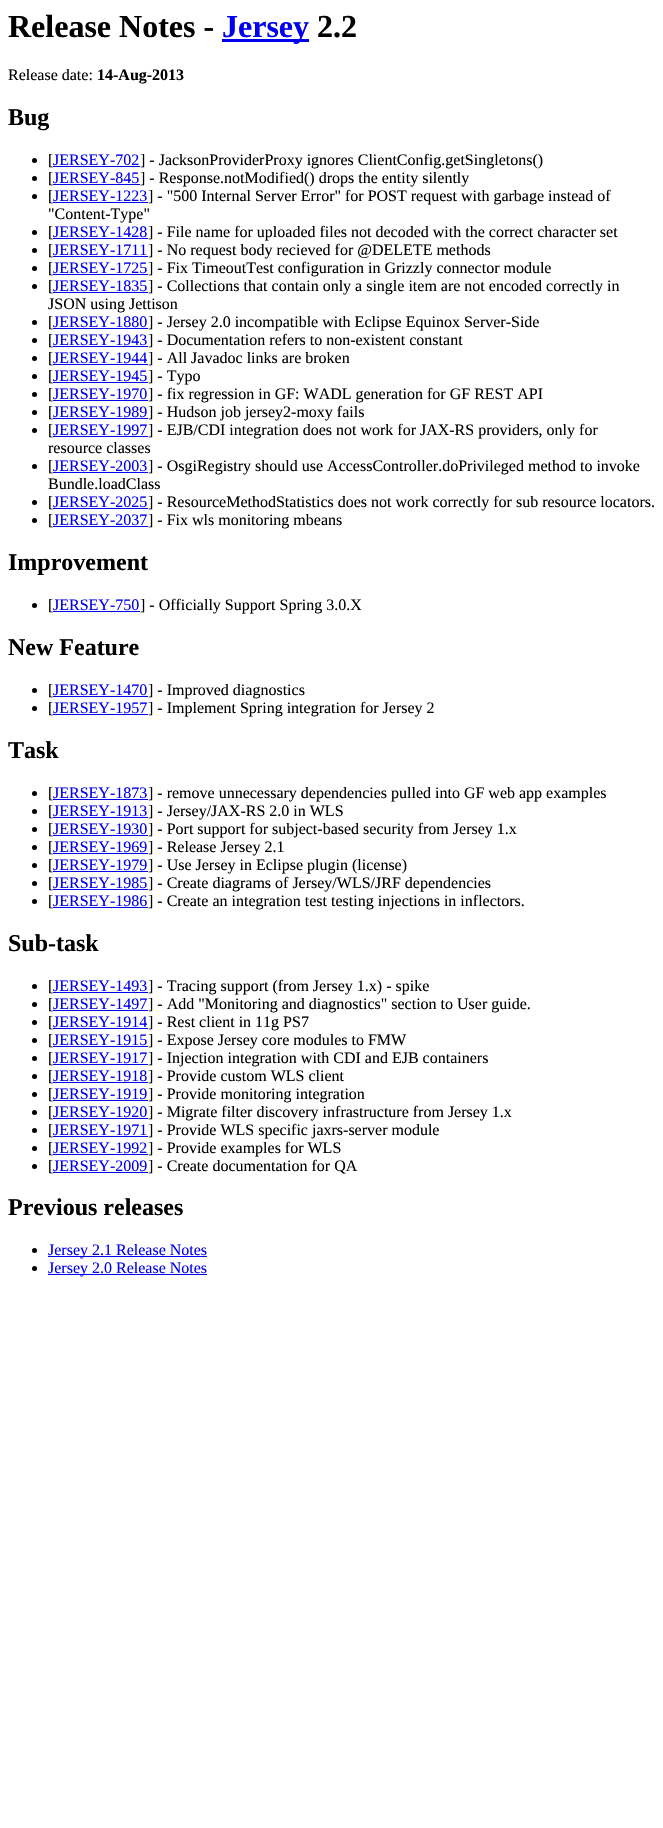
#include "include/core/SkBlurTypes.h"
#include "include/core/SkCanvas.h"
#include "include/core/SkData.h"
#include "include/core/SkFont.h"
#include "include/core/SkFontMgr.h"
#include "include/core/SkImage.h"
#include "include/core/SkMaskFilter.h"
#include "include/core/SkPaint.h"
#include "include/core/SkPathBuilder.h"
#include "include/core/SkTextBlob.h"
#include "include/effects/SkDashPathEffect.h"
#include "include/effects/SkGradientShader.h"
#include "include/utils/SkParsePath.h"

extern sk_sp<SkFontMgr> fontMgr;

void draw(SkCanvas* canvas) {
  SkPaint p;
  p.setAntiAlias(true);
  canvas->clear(SK_ColorWHITE);
  p.setColor(SkColorSetRGB(0, 0, 238));
  canvas->drawRect(SkRect::MakeLTRB(222, 39, 309, 42), p);
  p.setColor(SK_ColorBLACK);
  canvas->drawCircle(34.5f, 160.5f, 2.5f, p);
  p.setColor(SkColorSetRGB(0, 0, 238));
  canvas->drawRect(SkRect::MakeLTRB(53, 166, 140, 167), p);
  p.setColor(SK_ColorBLACK);
  canvas->drawCircle(34.5f, 178.5f, 2.5f, p);
  p.setColor(SkColorSetRGB(0, 0, 238));
  canvas->drawRect(SkRect::MakeLTRB(53, 184, 140, 185), p);
  p.setColor(SK_ColorBLACK);
  canvas->drawCircle(34.5f, 196.5f, 2.5f, p);
  p.setColor(SkColorSetRGB(0, 0, 238));
  canvas->drawRect(SkRect::MakeLTRB(53, 202, 148, 203), p);
  p.setColor(SK_ColorBLACK);
  canvas->drawCircle(34.5f, 232.5f, 2.5f, p);
  p.setColor(SkColorSetRGB(0, 0, 238));
  canvas->drawRect(SkRect::MakeLTRB(53, 238, 148, 239), p);
  p.setColor(SK_ColorBLACK);
  canvas->drawCircle(34.5f, 250.5f, 2.5f, p);
  p.setColor(SkColorSetRGB(0, 0, 238));
  canvas->drawRect(SkRect::MakeLTRB(53, 256, 148, 257), p);
  p.setColor(SK_ColorBLACK);
  canvas->drawCircle(34.5f, 268.5f, 2.5f, p);
  p.setColor(SkColorSetRGB(0, 0, 238));
  canvas->drawRect(SkRect::MakeLTRB(53, 274, 148, 275), p);
  p.setColor(SK_ColorBLACK);
  canvas->drawCircle(34.5f, 286.5f, 2.5f, p);
  p.setColor(SkColorSetRGB(0, 0, 238));
  canvas->drawRect(SkRect::MakeLTRB(53, 292, 148, 293), p);
  p.setColor(SK_ColorBLACK);
  canvas->drawCircle(34.5f, 322.5f, 2.5f, p);
  p.setColor(SkColorSetRGB(0, 0, 238));
  canvas->drawRect(SkRect::MakeLTRB(53, 328, 148, 329), p);
  p.setColor(SK_ColorBLACK);
  canvas->drawCircle(34.5f, 340.5f, 2.5f, p);
  p.setColor(SkColorSetRGB(0, 0, 238));
  canvas->drawRect(SkRect::MakeLTRB(53, 346, 148, 347), p);
  p.setColor(SK_ColorBLACK);
  canvas->drawCircle(34.5f, 358.5f, 2.5f, p);
  p.setColor(SkColorSetRGB(0, 0, 238));
  canvas->drawRect(SkRect::MakeLTRB(53, 364, 148, 365), p);
  p.setColor(SK_ColorBLACK);
  canvas->drawCircle(34.5f, 376.5f, 2.5f, p);
  p.setColor(SkColorSetRGB(0, 0, 238));
  canvas->drawRect(SkRect::MakeLTRB(53, 382, 148, 383), p);
  p.setColor(SK_ColorBLACK);
  canvas->drawCircle(34.5f, 394.5f, 2.5f, p);
  p.setColor(SkColorSetRGB(0, 0, 238));
  canvas->drawRect(SkRect::MakeLTRB(53, 400, 148, 401), p);
  p.setColor(SK_ColorBLACK);
  canvas->drawCircle(34.5f, 412.5f, 2.5f, p);
  p.setColor(SkColorSetRGB(0, 0, 238));
  canvas->drawRect(SkRect::MakeLTRB(53, 418, 148, 419), p);
  p.setColor(SK_ColorBLACK);
  canvas->drawCircle(34.5f, 430.5f, 2.5f, p);
  p.setColor(SkColorSetRGB(0, 0, 238));
  canvas->drawRect(SkRect::MakeLTRB(53, 436, 148, 437), p);
  p.setColor(SK_ColorBLACK);
  canvas->drawCircle(34.5f, 466.5f, 2.5f, p);
  p.setColor(SkColorSetRGB(0, 0, 238));
  canvas->drawRect(SkRect::MakeLTRB(53, 472, 148, 473), p);
  p.setColor(SK_ColorBLACK);
  canvas->drawCircle(34.5f, 502.5f, 2.5f, p);
  p.setColor(SkColorSetRGB(0, 0, 238));
  canvas->drawRect(SkRect::MakeLTRB(53, 508, 148, 509), p);
  p.setColor(SK_ColorBLACK);
  canvas->drawCircle(34.5f, 520.5f, 2.5f, p);
  p.setColor(SkColorSetRGB(0, 0, 238));
  canvas->drawRect(SkRect::MakeLTRB(53, 526, 148, 527), p);
  p.setColor(SK_ColorBLACK);
  canvas->drawCircle(34.5f, 605.5f, 2.5f, p);
  p.setColor(SkColorSetRGB(0, 0, 238));
  canvas->drawRect(SkRect::MakeLTRB(53, 611, 140, 612), p);
  p.setColor(SK_ColorBLACK);
  canvas->drawCircle(34.5f, 690.5f, 2.5f, p);
  p.setColor(SkColorSetRGB(0, 0, 238));
  canvas->drawRect(SkRect::MakeLTRB(53, 696, 148, 697), p);
  p.setColor(SK_ColorBLACK);
  canvas->drawCircle(34.5f, 708.5f, 2.5f, p);
  p.setColor(SkColorSetRGB(0, 0, 238));
  canvas->drawRect(SkRect::MakeLTRB(53, 714, 148, 715), p);
  p.setColor(SK_ColorBLACK);
  canvas->drawCircle(34.5f, 793.5f, 2.5f, p);
  p.setColor(SkColorSetRGB(0, 0, 238));
  canvas->drawRect(SkRect::MakeLTRB(53, 799, 148, 800), p);
  p.setColor(SK_ColorBLACK);
  canvas->drawCircle(34.5f, 811.5f, 2.5f, p);
  p.setColor(SkColorSetRGB(0, 0, 238));
  canvas->drawRect(SkRect::MakeLTRB(53, 817, 148, 818), p);
  p.setColor(SK_ColorBLACK);
  canvas->drawCircle(34.5f, 829.5f, 2.5f, p);
  p.setColor(SkColorSetRGB(0, 0, 238));
  canvas->drawRect(SkRect::MakeLTRB(53, 835, 148, 836), p);
  p.setColor(SK_ColorBLACK);
  canvas->drawCircle(34.5f, 847.5f, 2.5f, p);
  p.setColor(SkColorSetRGB(0, 0, 238));
  canvas->drawRect(SkRect::MakeLTRB(53, 853, 148, 854), p);
  p.setColor(SK_ColorBLACK);
  canvas->drawCircle(34.5f, 865.5f, 2.5f, p);
  p.setColor(SkColorSetRGB(0, 0, 238));
  canvas->drawRect(SkRect::MakeLTRB(53, 871, 148, 872), p);
  p.setColor(SK_ColorBLACK);
  canvas->drawCircle(34.5f, 883.5f, 2.5f, p);
  p.setColor(SkColorSetRGB(0, 0, 238));
  canvas->drawRect(SkRect::MakeLTRB(53, 889, 148, 890), p);
  p.setColor(SK_ColorBLACK);
  canvas->drawCircle(34.5f, 901.5f, 2.5f, p);
  p.setColor(SkColorSetRGB(0, 0, 238));
  canvas->drawRect(SkRect::MakeLTRB(53, 907, 148, 908), p);
  p.setColor(SK_ColorBLACK);
  canvas->drawCircle(34.5f, 986.5f, 2.5f, p);
  p.setColor(SkColorSetRGB(0, 0, 238));
  canvas->drawRect(SkRect::MakeLTRB(53, 992, 148, 993), p);
  p.setColor(SK_ColorBLACK);
  canvas->drawCircle(34.5f, 1004.5f, 2.5f, p);
  p.setColor(SkColorSetRGB(0, 0, 238));
  canvas->drawRect(SkRect::MakeLTRB(53, 1010, 148, 1011), p);
  p.setColor(SK_ColorBLACK);
  canvas->drawCircle(34.5f, 1022.5f, 2.5f, p);
  p.setColor(SkColorSetRGB(0, 0, 238));
  canvas->drawRect(SkRect::MakeLTRB(53, 1028, 148, 1029), p);
  p.setColor(SK_ColorBLACK);
  canvas->drawCircle(34.5f, 1040.5f, 2.5f, p);
  p.setColor(SkColorSetRGB(0, 0, 238));
  canvas->drawRect(SkRect::MakeLTRB(53, 1046, 148, 1047), p);
  p.setColor(SK_ColorBLACK);
  canvas->drawCircle(34.5f, 1058.5f, 2.5f, p);
  p.setColor(SkColorSetRGB(0, 0, 238));
  canvas->drawRect(SkRect::MakeLTRB(53, 1064, 148, 1065), p);
  p.setColor(SK_ColorBLACK);
  canvas->drawCircle(34.5f, 1076.5f, 2.5f, p);
  p.setColor(SkColorSetRGB(0, 0, 238));
  canvas->drawRect(SkRect::MakeLTRB(53, 1082, 148, 1083), p);
  p.setColor(SK_ColorBLACK);
  canvas->drawCircle(34.5f, 1094.5f, 2.5f, p);
  p.setColor(SkColorSetRGB(0, 0, 238));
  canvas->drawRect(SkRect::MakeLTRB(53, 1100, 148, 1101), p);
  p.setColor(SK_ColorBLACK);
  canvas->drawCircle(34.5f, 1112.5f, 2.5f, p);
  p.setColor(SkColorSetRGB(0, 0, 238));
  canvas->drawRect(SkRect::MakeLTRB(53, 1118, 148, 1119), p);
  p.setColor(SK_ColorBLACK);
  canvas->drawCircle(34.5f, 1130.5f, 2.5f, p);
  p.setColor(SkColorSetRGB(0, 0, 238));
  canvas->drawRect(SkRect::MakeLTRB(53, 1136, 148, 1137), p);
  p.setColor(SK_ColorBLACK);
  canvas->drawCircle(34.5f, 1148.5f, 2.5f, p);
  p.setColor(SkColorSetRGB(0, 0, 238));
  canvas->drawRect(SkRect::MakeLTRB(53, 1154, 148, 1155), p);
  p.setColor(SK_ColorBLACK);
  canvas->drawCircle(34.5f, 1166.5f, 2.5f, p);
  p.setColor(SkColorSetRGB(0, 0, 238));
  canvas->drawRect(SkRect::MakeLTRB(53, 1172, 148, 1173), p);
  p.setColor(SK_ColorBLACK);
  canvas->drawCircle(34.5f, 1250.5f, 2.5f, p);
  p.setColor(SkColorSetRGB(0, 0, 238));
  canvas->drawRect(SkRect::MakeLTRB(48, 1256, 207, 1257), p);
  p.setColor(SK_ColorBLACK);
  canvas->drawCircle(34.5f, 1268.5f, 2.5f, p);
  p.setColor(SkColorSetRGB(0, 0, 238));
  canvas->drawRect(SkRect::MakeLTRB(48, 1274, 207, 1275), p);
  SkFont font1(fontMgr->matchFamilyStyle("Liberation Serif", SkFontStyle::Bold()), 32);
  font1.setSubpixel(true);
  p.setColor(SK_ColorBLACK);
  canvas->drawString("Release Notes -", 8, 37, font1, p);
  p.setColor(SkColorSetRGB(0, 0, 238));
  canvas->drawString("Jersey", 222, 37, font1, p);
  p.setColor(SK_ColorBLACK);
  canvas->drawString("2.2", 317, 37, font1, p);
  SkFont font2(fontMgr->matchFamilyStyle("Liberation Serif", SkFontStyle::Normal()), 16);
  font2.setSubpixel(true);
  canvas->drawString("Release date:", 8, 80, font2, p);
  SkFont font3(fontMgr->matchFamilyStyle("Liberation Serif", SkFontStyle::Bold()), 16);
  font3.setSubpixel(true);
  canvas->drawString("14-Aug-2013", 97, 80, font3, p);
  SkFont font4(fontMgr->matchFamilyStyle("Liberation Serif", SkFontStyle::Bold()), 24);
  font4.setSubpixel(true);
  canvas->drawString("Bug", 8, 125, font4, p);
  canvas->drawString("[", 48, 165, font2, p);
  p.setColor(SkColorSetRGB(0, 0, 238));
  canvas->drawString("JERSEY-702", 53, 165, font2, p);
  p.setColor(SK_ColorBLACK);
  canvas->drawString("] - JacksonProviderProxy ignores ClientConfig.getSingletons()", 140, 165, font2, p);
  canvas->drawString("[", 48, 183, font2, p);
  p.setColor(SkColorSetRGB(0, 0, 238));
  canvas->drawString("JERSEY-845", 53, 183, font2, p);
  p.setColor(SK_ColorBLACK);
  canvas->drawString("] - Response.notModified() drops the entity silently", 140, 183, font2, p);
  canvas->drawString("[", 48, 201, font2, p);
  p.setColor(SkColorSetRGB(0, 0, 238));
  canvas->drawString("JERSEY-1223", 53, 201, font2, p);
  p.setColor(SK_ColorBLACK);
  canvas->drawString("] - \"500 Internal Server Error\" for POST request with garbage instead of", 148, 201, font2, p);
  canvas->drawString("\"Content-Type\"", 48, 219, font2, p);
  canvas->drawString("[", 48, 237, font2, p);
  p.setColor(SkColorSetRGB(0, 0, 238));
  canvas->drawString("JERSEY-1428", 53, 237, font2, p);
  p.setColor(SK_ColorBLACK);
  canvas->drawString("] - File name for uploaded files not decoded with the correct character set", 148, 237, font2, p);
  canvas->drawString("[", 48, 255, font2, p);
  p.setColor(SkColorSetRGB(0, 0, 238));
  canvas->drawString("JERSEY-1711", 53, 255, font2, p);
  p.setColor(SK_ColorBLACK);
  canvas->drawString("] - No request body recieved for @DELETE methods", 148, 255, font2, p);
  canvas->drawString("[", 48, 273, font2, p);
  p.setColor(SkColorSetRGB(0, 0, 238));
  canvas->drawString("JERSEY-1725", 53, 273, font2, p);
  p.setColor(SK_ColorBLACK);
  canvas->drawString("] - Fix TimeoutTest configuration in Grizzly connector module", 148, 273, font2, p);
  canvas->drawString("[", 48, 291, font2, p);
  p.setColor(SkColorSetRGB(0, 0, 238));
  canvas->drawString("JERSEY-1835", 53, 291, font2, p);
  p.setColor(SK_ColorBLACK);
  canvas->drawString("] - Collections that contain only a single item are not encoded correctly in", 148, 291, font2, p);
  canvas->drawString("JSON using Jettison", 48, 309, font2, p);
  canvas->drawString("[", 48, 327, font2, p);
  p.setColor(SkColorSetRGB(0, 0, 238));
  canvas->drawString("JERSEY-1880", 53, 327, font2, p);
  p.setColor(SK_ColorBLACK);
  canvas->drawString("] - Jersey 2.0 incompatible with Eclipse Equinox Server-Side", 148, 327, font2, p);
  canvas->drawString("[", 48, 345, font2, p);
  p.setColor(SkColorSetRGB(0, 0, 238));
  canvas->drawString("JERSEY-1943", 53, 345, font2, p);
  p.setColor(SK_ColorBLACK);
  canvas->drawString("] - Documentation refers to non-existent constant", 148, 345, font2, p);
  canvas->drawString("[", 48, 363, font2, p);
  p.setColor(SkColorSetRGB(0, 0, 238));
  canvas->drawString("JERSEY-1944", 53, 363, font2, p);
  p.setColor(SK_ColorBLACK);
  canvas->drawString("] - All Javadoc links are broken", 148, 363, font2, p);
  canvas->drawString("[", 48, 381, font2, p);
  p.setColor(SkColorSetRGB(0, 0, 238));
  canvas->drawString("JERSEY-1945", 53, 381, font2, p);
  p.setColor(SK_ColorBLACK);
  canvas->drawString("] - Typo", 148, 381, font2, p);
  canvas->drawString("[", 48, 399, font2, p);
  p.setColor(SkColorSetRGB(0, 0, 238));
  canvas->drawString("JERSEY-1970", 53, 399, font2, p);
  p.setColor(SK_ColorBLACK);
  canvas->drawString("] - fix regression in GF: WADL generation for GF REST API", 148, 399, font2, p);
  canvas->drawString("[", 48, 417, font2, p);
  p.setColor(SkColorSetRGB(0, 0, 238));
  canvas->drawString("JERSEY-1989", 53, 417, font2, p);
  p.setColor(SK_ColorBLACK);
  canvas->drawString("] - Hudson job jersey2-moxy fails", 148, 417, font2, p);
  canvas->drawString("[", 48, 435, font2, p);
  p.setColor(SkColorSetRGB(0, 0, 238));
  canvas->drawString("JERSEY-1997", 53, 435, font2, p);
  p.setColor(SK_ColorBLACK);
  canvas->drawString("] - EJB/CDI integration does not work for JAX-RS providers, only for", 148, 435, font2, p);
  canvas->drawString("resource classes", 48, 453, font2, p);
  canvas->drawString("[", 48, 471, font2, p);
  p.setColor(SkColorSetRGB(0, 0, 238));
  canvas->drawString("JERSEY-2003", 53, 471, font2, p);
  p.setColor(SK_ColorBLACK);
  canvas->drawString("] - OsgiRegistry should use AccessController.doPrivileged method to invoke", 148, 471, font2, p);
  canvas->drawString("Bundle.loadClass", 48, 489, font2, p);
  canvas->drawString("[", 48, 507, font2, p);
  p.setColor(SkColorSetRGB(0, 0, 238));
  canvas->drawString("JERSEY-2025", 53, 507, font2, p);
  p.setColor(SK_ColorBLACK);
  canvas->drawString("] - ResourceMethodStatistics does not work correctly for sub resource locators.", 148, 507, font2, p);
  canvas->drawString("[", 48, 525, font2, p);
  p.setColor(SkColorSetRGB(0, 0, 238));
  canvas->drawString("JERSEY-2037", 53, 525, font2, p);
  p.setColor(SK_ColorBLACK);
  canvas->drawString("] - Fix wls monitoring mbeans", 148, 525, font2, p);
  canvas->drawString("Improvement", 8, 570, font4, p);
  canvas->drawString("[", 48, 610, font2, p);
  p.setColor(SkColorSetRGB(0, 0, 238));
  canvas->drawString("JERSEY-750", 53, 610, font2, p);
  p.setColor(SK_ColorBLACK);
  canvas->drawString("] - Officially Support Spring 3.0.X", 140, 610, font2, p);
  canvas->drawString("New Feature", 8, 655, font4, p);
  canvas->drawString("[", 48, 695, font2, p);
  p.setColor(SkColorSetRGB(0, 0, 238));
  canvas->drawString("JERSEY-1470", 53, 695, font2, p);
  p.setColor(SK_ColorBLACK);
  canvas->drawString("] - Improved diagnostics", 148, 695, font2, p);
  canvas->drawString("[", 48, 713, font2, p);
  p.setColor(SkColorSetRGB(0, 0, 238));
  canvas->drawString("JERSEY-1957", 53, 713, font2, p);
  p.setColor(SK_ColorBLACK);
  canvas->drawString("] - Implement Spring integration for Jersey 2", 148, 713, font2, p);
  canvas->drawString("Task", 8, 758, font4, p);
  canvas->drawString("[", 48, 798, font2, p);
  p.setColor(SkColorSetRGB(0, 0, 238));
  canvas->drawString("JERSEY-1873", 53, 798, font2, p);
  p.setColor(SK_ColorBLACK);
  canvas->drawString("] - remove unnecessary dependencies pulled into GF web app examples", 148, 798, font2, p);
  canvas->drawString("[", 48, 816, font2, p);
  p.setColor(SkColorSetRGB(0, 0, 238));
  canvas->drawString("JERSEY-1913", 53, 816, font2, p);
  p.setColor(SK_ColorBLACK);
  canvas->drawString("] - Jersey/JAX-RS 2.0 in WLS", 148, 816, font2, p);
  canvas->drawString("[", 48, 834, font2, p);
  p.setColor(SkColorSetRGB(0, 0, 238));
  canvas->drawString("JERSEY-1930", 53, 834, font2, p);
  p.setColor(SK_ColorBLACK);
  canvas->drawString("] - Port support for subject-based security from Jersey 1.x", 148, 834, font2, p);
  canvas->drawString("[", 48, 852, font2, p);
  p.setColor(SkColorSetRGB(0, 0, 238));
  canvas->drawString("JERSEY-1969", 53, 852, font2, p);
  p.setColor(SK_ColorBLACK);
  canvas->drawString("] - Release Jersey 2.1", 148, 852, font2, p);
  canvas->drawString("[", 48, 870, font2, p);
  p.setColor(SkColorSetRGB(0, 0, 238));
  canvas->drawString("JERSEY-1979", 53, 870, font2, p);
  p.setColor(SK_ColorBLACK);
  canvas->drawString("] - Use Jersey in Eclipse plugin (license)", 148, 870, font2, p);
  canvas->drawString("[", 48, 888, font2, p);
  p.setColor(SkColorSetRGB(0, 0, 238));
  canvas->drawString("JERSEY-1985", 53, 888, font2, p);
  p.setColor(SK_ColorBLACK);
  canvas->drawString("] - Create diagrams of Jersey/WLS/JRF dependencies", 148, 888, font2, p);
  canvas->drawString("[", 48, 906, font2, p);
  p.setColor(SkColorSetRGB(0, 0, 238));
  canvas->drawString("JERSEY-1986", 53, 906, font2, p);
  p.setColor(SK_ColorBLACK);
  canvas->drawString("] - Create an integration test testing injections in inflectors.", 148, 906, font2, p);
  canvas->drawString("Sub-task", 8, 951, font4, p);
  canvas->drawString("[", 48, 991, font2, p);
  p.setColor(SkColorSetRGB(0, 0, 238));
  canvas->drawString("JERSEY-1493", 53, 991, font2, p);
  p.setColor(SK_ColorBLACK);
  canvas->drawString("] - Tracing support (from Jersey 1.x) - spike", 148, 991, font2, p);
  canvas->drawString("[", 48, 1009, font2, p);
  p.setColor(SkColorSetRGB(0, 0, 238));
  canvas->drawString("JERSEY-1497", 53, 1009, font2, p);
  p.setColor(SK_ColorBLACK);
  canvas->drawString("] - Add \"Monitoring and diagnostics\" section to User guide.", 148, 1009, font2, p);
  canvas->drawString("[", 48, 1027, font2, p);
  p.setColor(SkColorSetRGB(0, 0, 238));
  canvas->drawString("JERSEY-1914", 53, 1027, font2, p);
  p.setColor(SK_ColorBLACK);
  canvas->drawString("] - Rest client in 11g PS7", 148, 1027, font2, p);
  canvas->drawString("[", 48, 1045, font2, p);
  p.setColor(SkColorSetRGB(0, 0, 238));
  canvas->drawString("JERSEY-1915", 53, 1045, font2, p);
  p.setColor(SK_ColorBLACK);
  canvas->drawString("] - Expose Jersey core modules to FMW", 148, 1045, font2, p);
  canvas->drawString("[", 48, 1063, font2, p);
  p.setColor(SkColorSetRGB(0, 0, 238));
  canvas->drawString("JERSEY-1917", 53, 1063, font2, p);
  p.setColor(SK_ColorBLACK);
  canvas->drawString("] - Injection integration with CDI and EJB containers", 148, 1063, font2, p);
  canvas->drawString("[", 48, 1081, font2, p);
  p.setColor(SkColorSetRGB(0, 0, 238));
  canvas->drawString("JERSEY-1918", 53, 1081, font2, p);
  p.setColor(SK_ColorBLACK);
  canvas->drawString("] - Provide custom WLS client", 148, 1081, font2, p);
  canvas->drawString("[", 48, 1099, font2, p);
  p.setColor(SkColorSetRGB(0, 0, 238));
  canvas->drawString("JERSEY-1919", 53, 1099, font2, p);
  p.setColor(SK_ColorBLACK);
  canvas->drawString("] - Provide monitoring integration", 148, 1099, font2, p);
  canvas->drawString("[", 48, 1117, font2, p);
  p.setColor(SkColorSetRGB(0, 0, 238));
  canvas->drawString("JERSEY-1920", 53, 1117, font2, p);
  p.setColor(SK_ColorBLACK);
  canvas->drawString("] - Migrate filter discovery infrastructure from Jersey 1.x", 148, 1117, font2, p);
  canvas->drawString("[", 48, 1135, font2, p);
  p.setColor(SkColorSetRGB(0, 0, 238));
  canvas->drawString("JERSEY-1971", 53, 1135, font2, p);
  p.setColor(SK_ColorBLACK);
  canvas->drawString("] - Provide WLS specific jaxrs-server module", 148, 1135, font2, p);
  canvas->drawString("[", 48, 1153, font2, p);
  p.setColor(SkColorSetRGB(0, 0, 238));
  canvas->drawString("JERSEY-1992", 53, 1153, font2, p);
  p.setColor(SK_ColorBLACK);
  canvas->drawString("] - Provide examples for WLS", 148, 1153, font2, p);
  canvas->drawString("[", 48, 1171, font2, p);
  p.setColor(SkColorSetRGB(0, 0, 238));
  canvas->drawString("JERSEY-2009", 53, 1171, font2, p);
  p.setColor(SK_ColorBLACK);
  canvas->drawString("] - Create documentation for QA", 148, 1171, font2, p);
  canvas->drawString("Previous releases", 8, 1215, font4, p);
  p.setColor(SkColorSetRGB(0, 0, 238));
  canvas->drawString("Jersey 2.1 Release Notes", 48, 1255, font2, p);
  canvas->drawString("Jersey 2.0 Release Notes", 48, 1273, font2, p);
}
